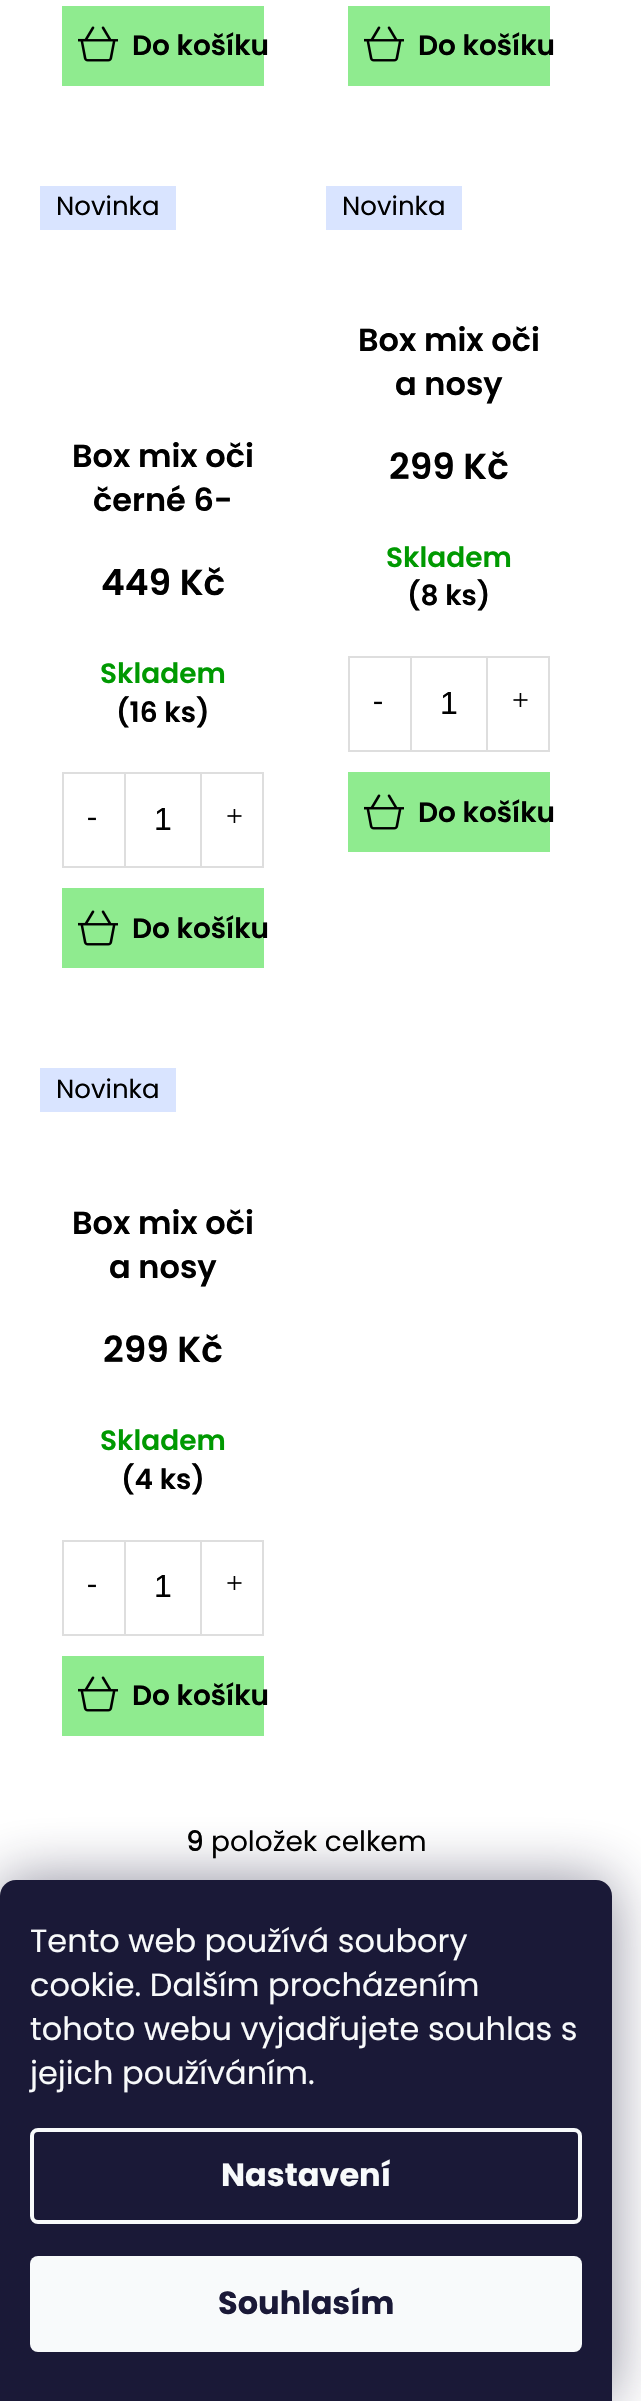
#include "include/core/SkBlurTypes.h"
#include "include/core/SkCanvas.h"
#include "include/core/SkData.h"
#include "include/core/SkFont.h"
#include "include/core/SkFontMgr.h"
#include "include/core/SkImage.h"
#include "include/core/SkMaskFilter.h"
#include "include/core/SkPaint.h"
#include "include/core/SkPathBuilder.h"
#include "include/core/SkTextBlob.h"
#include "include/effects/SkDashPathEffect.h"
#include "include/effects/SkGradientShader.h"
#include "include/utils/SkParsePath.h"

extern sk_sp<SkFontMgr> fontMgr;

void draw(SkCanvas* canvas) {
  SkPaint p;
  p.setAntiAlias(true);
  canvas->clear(SK_ColorWHITE);
  p.setColor(SkColorSetRGB(143, 235, 143));
  canvas->drawRect(SkRect::MakeLTRB(62, 6, 264, 86), p);
  canvas->drawImageRect(SkImages::DeferredFromEncodedData(SkData::MakeFromFileName("images/1.png")), SkRect::MakeLTRB(78, 26, 118, 62), SkSamplingOptions());
  canvas->drawRect(SkRect::MakeLTRB(348, 6, 550, 86), p);
  canvas->drawImageRect(SkImages::DeferredFromEncodedData(SkData::MakeFromFileName("images/1.png")), SkRect::MakeLTRB(364, 26, 404, 62), SkSamplingOptions());
  p.setColor(SkColorSetRGB(217, 228, 255));
  canvas->drawRect(SkRect::MakeLTRB(40, 186, 176, 230), p);
  p.setStyle(SkPaint::kStroke_Style);
  p.setStrokeWidth(2);
  p.setColor(SkColorSetRGB(222, 222, 222));
  canvas->drawRect(SkRect::MakeLTRB(63, 773, 263, 867), p);
  p.setStyle(SkPaint::kFill_Style);
  canvas->drawRect(SkRect::MakeLTRB(200, 774, 202, 866), p);
  canvas->drawRect(SkRect::MakeLTRB(124, 774, 126, 866), p);
  p.setColor(SkColorSetRGB(143, 235, 143));
  canvas->drawRect(SkRect::MakeLTRB(62, 888, 264, 968), p);
  canvas->drawImageRect(SkImages::DeferredFromEncodedData(SkData::MakeFromFileName("images/1.png")), SkRect::MakeLTRB(78, 910, 118, 946), SkSamplingOptions());
  p.setColor(SkColorSetRGB(217, 228, 255));
  canvas->drawRect(SkRect::MakeLTRB(326, 186, 462, 230), p);
  p.setStyle(SkPaint::kStroke_Style);
  p.setColor(SkColorSetRGB(222, 222, 222));
  canvas->drawRect(SkRect::MakeLTRB(349, 657, 549, 751), p);
  p.setStyle(SkPaint::kFill_Style);
  canvas->drawRect(SkRect::MakeLTRB(486, 658, 488, 750), p);
  canvas->drawRect(SkRect::MakeLTRB(410, 658, 412, 750), p);
  p.setColor(SkColorSetRGB(143, 235, 143));
  canvas->drawRect(SkRect::MakeLTRB(348, 772, 550, 852), p);
  canvas->drawImageRect(SkImages::DeferredFromEncodedData(SkData::MakeFromFileName("images/1.png")), SkRect::MakeLTRB(364, 794, 404, 830), SkSamplingOptions());
  p.setColor(SkColorSetRGB(217, 228, 255));
  canvas->drawRect(SkRect::MakeLTRB(40, 1068, 176, 1112), p);
  p.setStyle(SkPaint::kStroke_Style);
  p.setColor(SkColorSetRGB(222, 222, 222));
  canvas->drawRect(SkRect::MakeLTRB(63, 1541, 263, 1635), p);
  p.setStyle(SkPaint::kFill_Style);
  canvas->drawRect(SkRect::MakeLTRB(200, 1542, 202, 1634), p);
  canvas->drawRect(SkRect::MakeLTRB(124, 1542, 126, 1634), p);
  p.setColor(SkColorSetRGB(143, 235, 143));
  canvas->drawRect(SkRect::MakeLTRB(62, 1656, 264, 1736), p);
  canvas->drawImageRect(SkImages::DeferredFromEncodedData(SkData::MakeFromFileName("images/1.png")), SkRect::MakeLTRB(78, 1676, 118, 1712), SkSamplingOptions());
  p.setColor(SkColorSetARGB(128, 27, 25, 57));
  p.setMaskFilter(SkMaskFilter::MakeBlur(kNormal_SkBlurStyle, 30));
  canvas->drawRoundRect(SkRect::MakeLTRB(0, 1880, 612, 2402), 16, 16, p);
  p.setMaskFilter(nullptr);
  p.setColor(SkColorSetRGB(26, 25, 55));
  canvas->drawPath(SkPathBuilder().moveTo(16, 1880).lineTo(596, 1880).cubicTo(605, 1880, 612, 1887, 612, 1896).lineTo(612, 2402).lineTo(0, 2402).lineTo(0, 1896).cubicTo(0, 1887, 7, 1880, 16, 1880).close().detach(), p);
  p.setStyle(SkPaint::kStroke_Style);
  p.setStrokeWidth(4);
  p.setColor(SkColorSetRGB(248, 250, 251));
  canvas->drawRoundRect(SkRect::MakeLTRB(32, 2130, 580, 2222), 6, 6, p);
  p.setStyle(SkPaint::kFill_Style);
  canvas->drawRoundRect(SkRect::MakeLTRB(30, 2256, 582, 2352), 8, 8, p);
  SkFont font1(fontMgr->matchFamilyStyle("Poppins", SkFontStyle(600, SkFontStyle::kNormal_Width, SkFontStyle::kUpright_Slant)), 28);
  font1.setSubpixel(true);
  p.setColor(SK_ColorBLACK);
  canvas->drawString("Do košíku", 132, 55, font1, p);
  canvas->drawString("Do košíku", 418, 55, font1, p);
  SkFont font2(fontMgr->matchFamilyStyle("Poppins", SkFontStyle::Normal()), 26);
  font2.setSubpixel(true);
  canvas->drawString("Novinka", 56, 215, font2, p);
  SkFont font3(fontMgr->matchFamilyStyle("Poppins", SkFontStyle(600, SkFontStyle::kNormal_Width, SkFontStyle::kUpright_Slant)), 32);
  font3.setSubpixel(true);
  canvas->drawString("Box mix oči", 72, 467, font3, p);
  canvas->drawString("černé 6-", 93, 511, font3, p);
  SkFont font4(fontMgr->matchFamilyStyle("Poppins", SkFontStyle(600, SkFontStyle::kNormal_Width, SkFontStyle::kUpright_Slant)), 36);
  font4.setSubpixel(true);
  canvas->drawString("449 Kč", 101, 595, font4, p);
  p.setColor(SkColorSetRGB(0, 153, 1));
  canvas->drawString("Skladem", 100, 683, font1, p);
  p.setColor(SK_ColorBLACK);
  canvas->drawString("(16 ks)", 116, 722, font1, p);
  SkFont font5(fontMgr->matchFamilyStyle("Liberation Serif", SkFontStyle::Normal()), 30);
  font5.setSubpixel(true);
  canvas->drawString("-", 87, 826, font5, p);
  SkFont font6(fontMgr->matchFamilyStyle("Liberation Sans", SkFontStyle::Normal()), 32);
  font6.setSubpixel(true);
  canvas->drawString("1", 154, 830, font6, p);
  canvas->drawString("+", 226, 826, font5, p);
  canvas->drawString("Do košíku", 132, 938, font1, p);
  canvas->drawString("Novinka", 342, 215, font2, p);
  canvas->drawString("Box mix oči", 358, 351, font3, p);
  canvas->drawString("a nosy", 395, 395, font3, p);
  canvas->drawString("299 Kč", 389, 479, font4, p);
  p.setColor(SkColorSetRGB(0, 153, 1));
  canvas->drawString("Skladem", 386, 567, font1, p);
  p.setColor(SK_ColorBLACK);
  canvas->drawString("(8 ks)", 407, 605, font1, p);
  canvas->drawString("-", 373, 710, font5, p);
  canvas->drawString("1", 440, 714, font6, p);
  canvas->drawString("+", 512, 710, font5, p);
  canvas->drawString("Do košíku", 418, 822, font1, p);
  canvas->drawString("Novinka", 56, 1098, font2, p);
  canvas->drawString("Box mix oči", 72, 1234, font3, p);
  canvas->drawString("a nosy", 109, 1278, font3, p);
  canvas->drawString("299 Kč", 103, 1362, font4, p);
  p.setColor(SkColorSetRGB(0, 153, 1));
  canvas->drawString("Skladem", 100, 1450, font1, p);
  p.setColor(SK_ColorBLACK);
  canvas->drawString("(4 ks)", 121, 1489, font1, p);
  canvas->drawString("-", 87, 1593, font5, p);
  canvas->drawString("1", 154, 1597, font6, p);
  canvas->drawString("+", 226, 1593, font5, p);
  canvas->drawString("Do košíku", 132, 1705, font1, p);
  SkFont font7(fontMgr->matchFamilyStyle("Poppins", SkFontStyle(500, SkFontStyle::kNormal_Width, SkFontStyle::kUpright_Slant)), 28);
  font7.setSubpixel(true);
  canvas->drawString("9", 186, 1851, font7, p);
  SkFont font8(fontMgr->matchFamilyStyle("Poppins", SkFontStyle::Normal()), 28);
  font8.setSubpixel(true);
  canvas->drawString("položek celkem", 211, 1851, font8, p);
  SkFont font9(fontMgr->matchFamilyStyle("Poppins", SkFontStyle::Normal()), 32);
  font9.setSubpixel(true);
  p.setColor(SkColorSetRGB(248, 250, 251));
  canvas->drawString("Tento web používá soubory", 30, 1952, font9, p);
  canvas->drawString("cookie. Dalším procházením", 30, 1996, font9, p);
  canvas->drawString("tohoto webu vyjadřujete souhlas s", 30, 2040, font9, p);
  canvas->drawString("jejich používáním.", 30, 2084, font9, p);
  SkFont font10(fontMgr->matchFamilyStyle("Poppins", SkFontStyle::Bold()), 32);
  font10.setSubpixel(true);
  canvas->drawString("Nastavení", 221, 2186, font10, p);
  p.setColor(SkColorSetRGB(26, 25, 55));
  canvas->drawString("Souhlasím", 218, 2314, font10, p);
}
